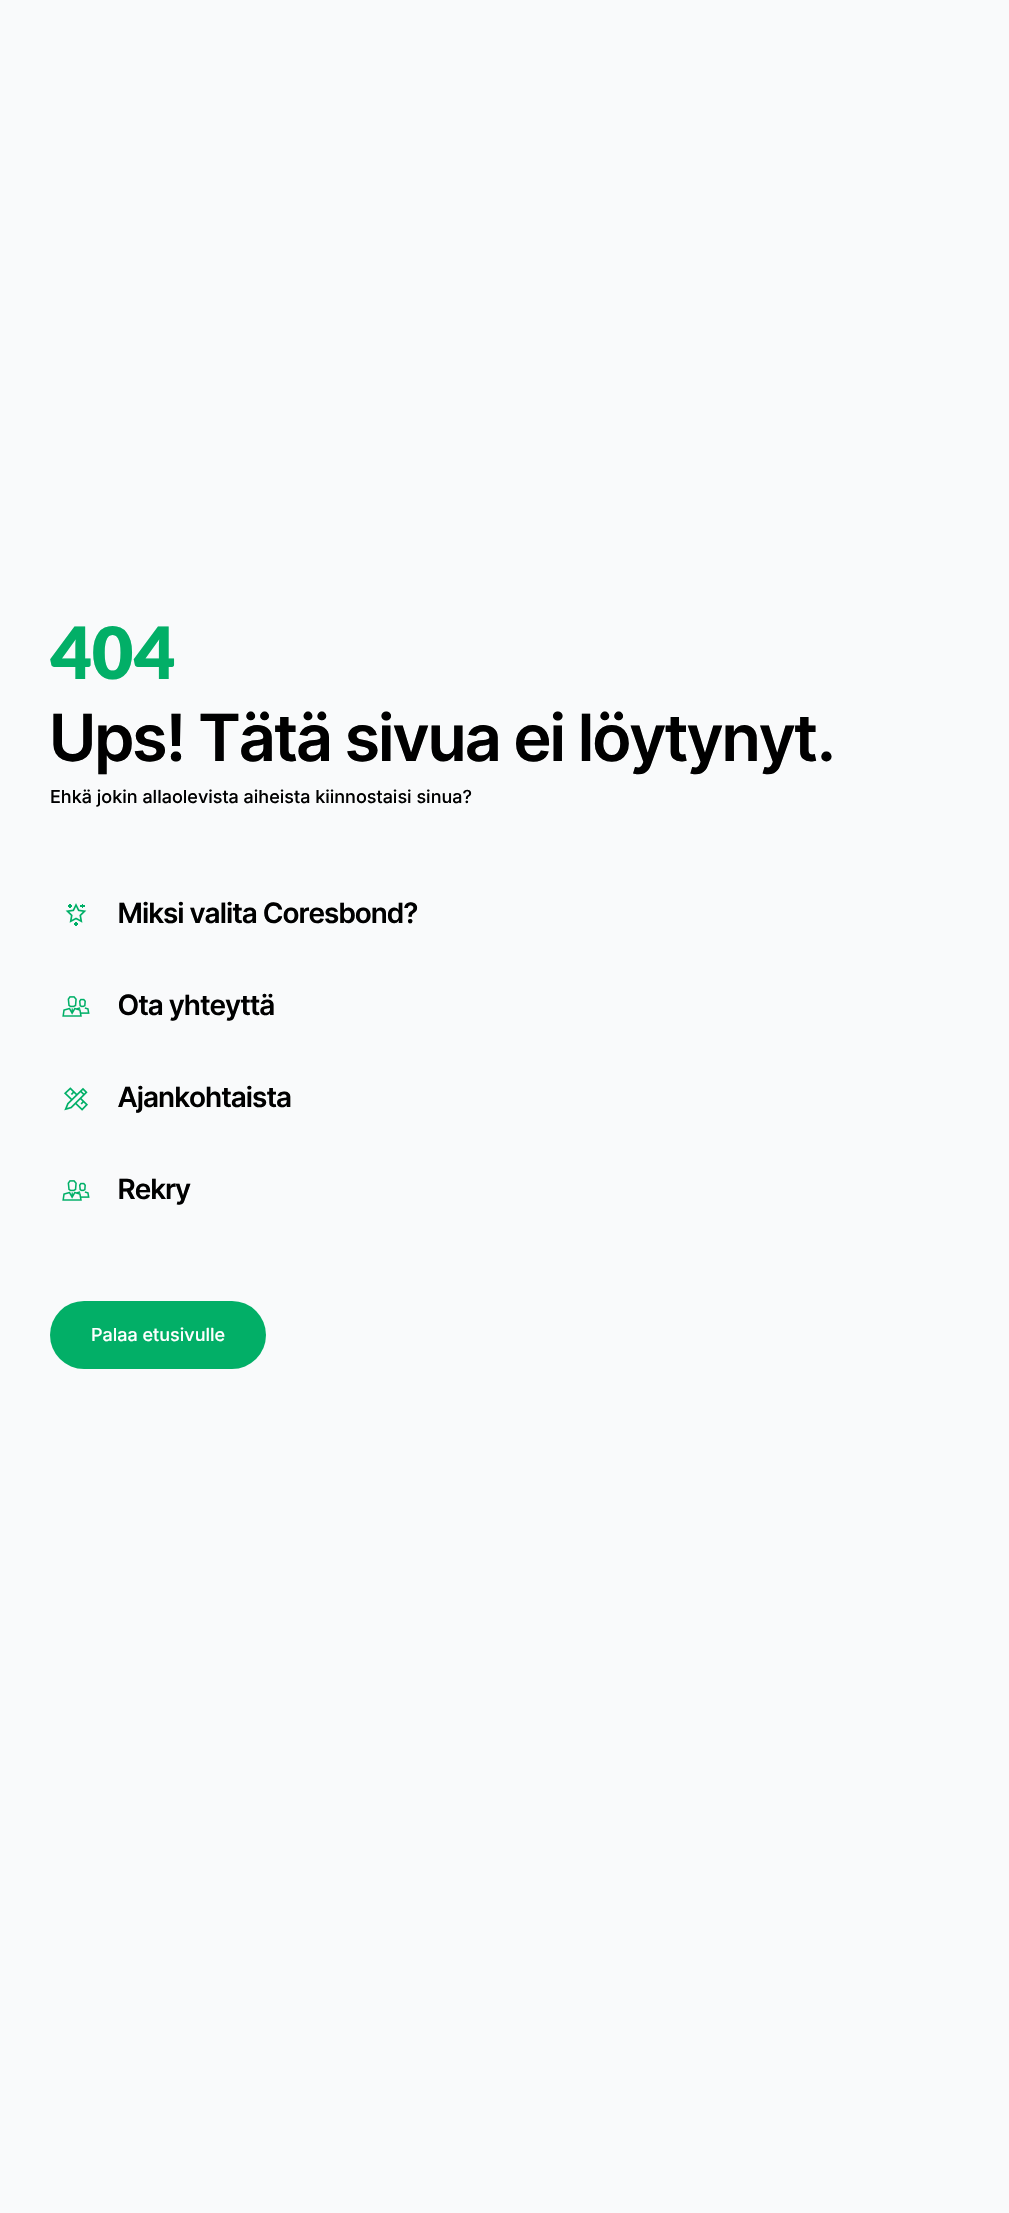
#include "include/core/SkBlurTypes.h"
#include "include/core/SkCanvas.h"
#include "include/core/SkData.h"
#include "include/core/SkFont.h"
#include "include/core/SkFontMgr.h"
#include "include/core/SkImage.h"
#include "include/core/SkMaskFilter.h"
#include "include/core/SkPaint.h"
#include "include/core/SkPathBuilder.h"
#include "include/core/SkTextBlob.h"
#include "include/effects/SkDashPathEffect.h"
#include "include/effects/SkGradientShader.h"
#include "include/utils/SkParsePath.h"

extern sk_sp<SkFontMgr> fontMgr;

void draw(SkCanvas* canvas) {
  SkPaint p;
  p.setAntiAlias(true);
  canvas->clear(SkColorSetRGB(249, 250, 251));
  canvas->drawImageRect(SkImages::DeferredFromEncodedData(SkData::MakeFromFileName("images/1.png")), SkRect::MakeLTRB(65, 903, 87, 926), SkSamplingOptions());
  canvas->drawImageRect(SkImages::DeferredFromEncodedData(SkData::MakeFromFileName("images/2.png")), SkRect::MakeLTRB(62, 996, 90, 1017), SkSamplingOptions());
  canvas->drawImageRect(SkImages::DeferredFromEncodedData(SkData::MakeFromFileName("images/3.png")), SkRect::MakeLTRB(64, 1087, 88, 1111), SkSamplingOptions());
  canvas->drawImageRect(SkImages::DeferredFromEncodedData(SkData::MakeFromFileName("images/2.png")), SkRect::MakeLTRB(62, 1180, 90, 1201), SkSamplingOptions());
  p.setColor(SkColorSetRGB(2, 175, 103));
  canvas->drawRoundRect(SkRect::MakeLTRB(50, 1301, 266, 1369), 34, 34, p);
  SkFont font1(fontMgr->matchFamilyStyle("Lato", SkFontStyle(900, SkFontStyle::kNormal_Width, SkFontStyle::kUpright_Slant)), 72);
  font1.setSubpixel(true);
  canvas->drawString("404", 50, 679, font1, p);
  SkFont font2(fontMgr->matchFamilyStyle("Inter Tight", SkFontStyle(600, SkFontStyle::kNormal_Width, SkFontStyle::kUpright_Slant)), 65);
  font2.setSubpixel(true);
  p.setColor(SK_ColorBLACK);
  canvas->drawString("Ups! Tätä sivua ei löytynyt.", 50, 761, font2, p);
  SkFont font3(fontMgr->matchFamilyStyle("Inter", SkFontStyle(500, SkFontStyle::kNormal_Width, SkFontStyle::kUpright_Slant)), 18);
  font3.setSubpixel(true);
  canvas->drawString("Ehkä jokin allaolevista aiheista kiinnostaisi sinua?", 50, 803, font3, p);
  SkFont font4(fontMgr->matchFamilyStyle("Inter Tight", SkFontStyle(600, SkFontStyle::kNormal_Width, SkFontStyle::kUpright_Slant)), 28);
  font4.setSubpixel(true);
  canvas->drawString("Miksi valita Coresbond?", 118, 923, font4, p);
  canvas->drawString("Ota yhteyttä", 118, 1015, font4, p);
  canvas->drawString("Ajankohtaista", 118, 1107, font4, p);
  canvas->drawString("Rekry", 118, 1199, font4, p);
  p.setColor(SK_ColorWHITE);
  canvas->drawString("Palaa etusivulle", 91, 1341, font3, p);
}
